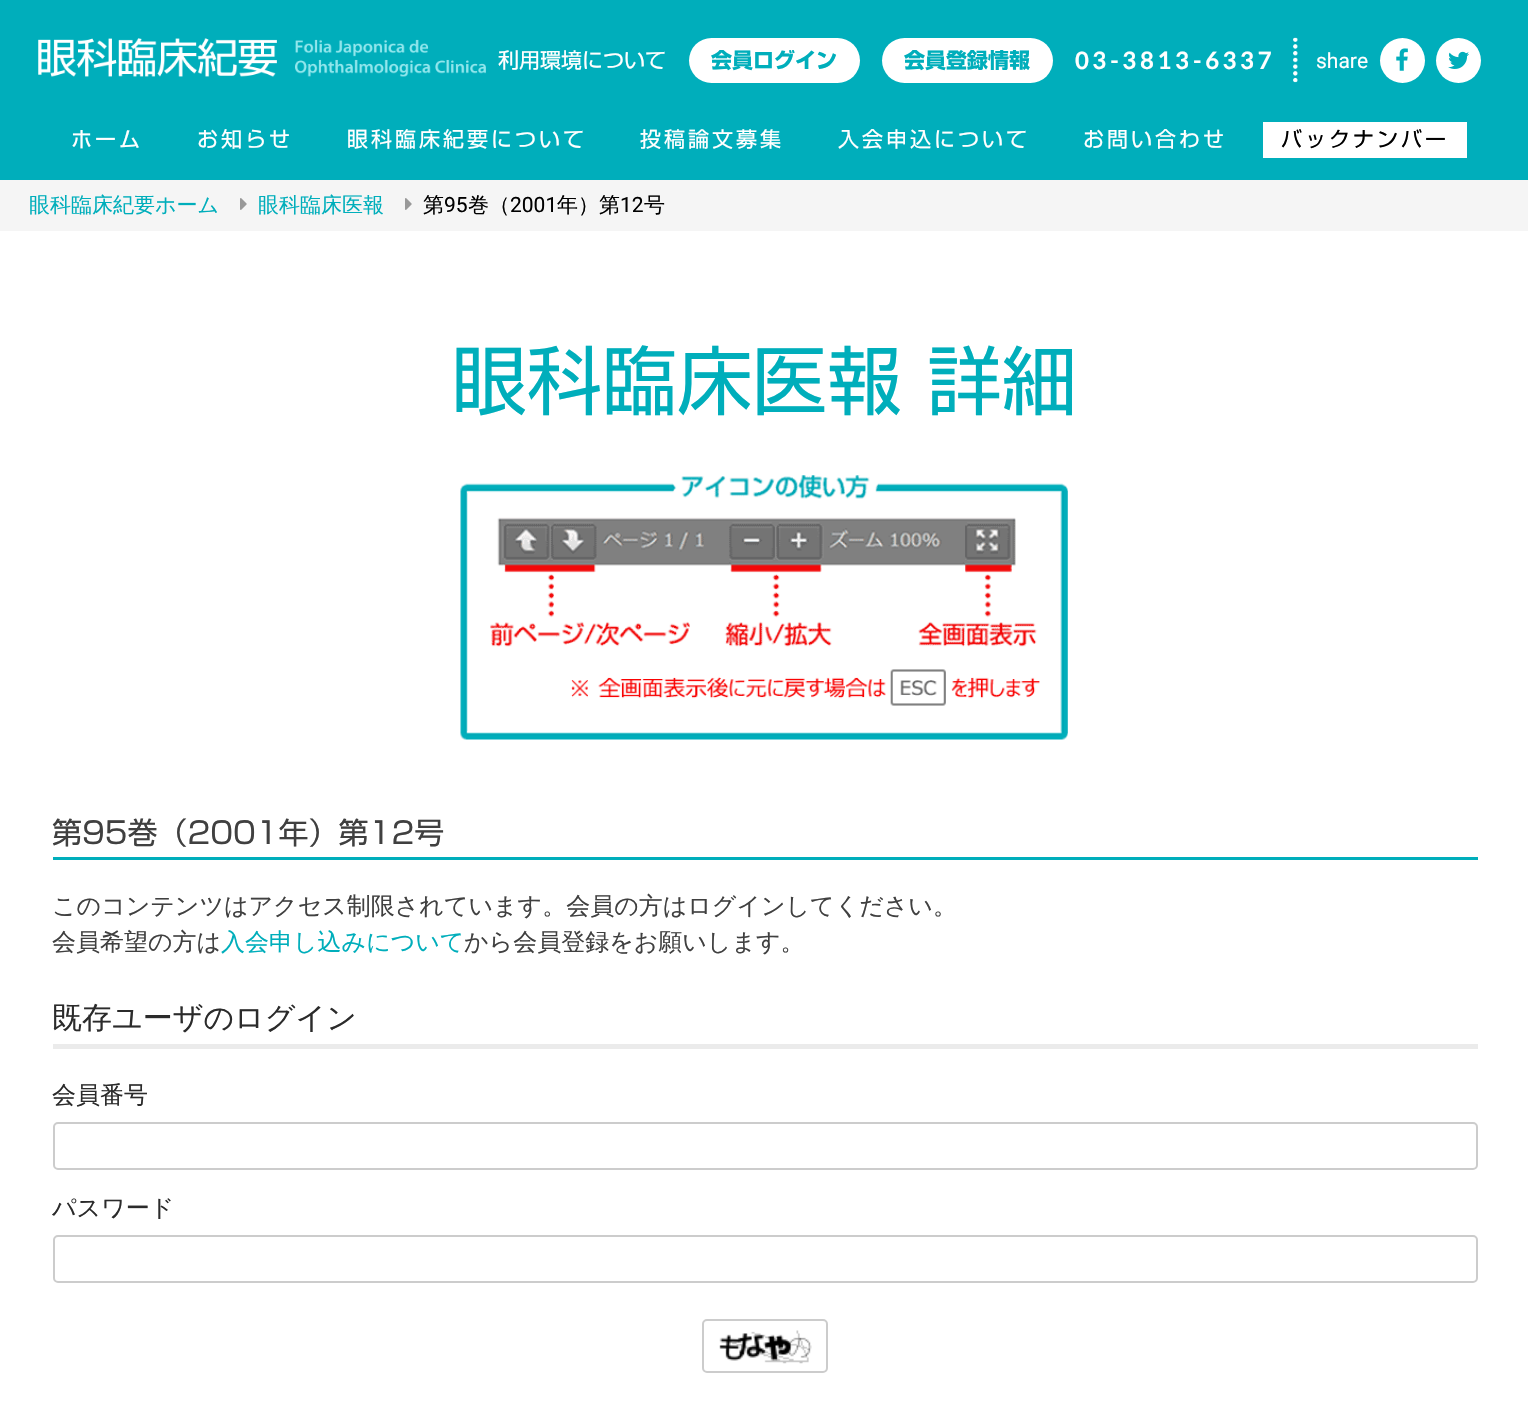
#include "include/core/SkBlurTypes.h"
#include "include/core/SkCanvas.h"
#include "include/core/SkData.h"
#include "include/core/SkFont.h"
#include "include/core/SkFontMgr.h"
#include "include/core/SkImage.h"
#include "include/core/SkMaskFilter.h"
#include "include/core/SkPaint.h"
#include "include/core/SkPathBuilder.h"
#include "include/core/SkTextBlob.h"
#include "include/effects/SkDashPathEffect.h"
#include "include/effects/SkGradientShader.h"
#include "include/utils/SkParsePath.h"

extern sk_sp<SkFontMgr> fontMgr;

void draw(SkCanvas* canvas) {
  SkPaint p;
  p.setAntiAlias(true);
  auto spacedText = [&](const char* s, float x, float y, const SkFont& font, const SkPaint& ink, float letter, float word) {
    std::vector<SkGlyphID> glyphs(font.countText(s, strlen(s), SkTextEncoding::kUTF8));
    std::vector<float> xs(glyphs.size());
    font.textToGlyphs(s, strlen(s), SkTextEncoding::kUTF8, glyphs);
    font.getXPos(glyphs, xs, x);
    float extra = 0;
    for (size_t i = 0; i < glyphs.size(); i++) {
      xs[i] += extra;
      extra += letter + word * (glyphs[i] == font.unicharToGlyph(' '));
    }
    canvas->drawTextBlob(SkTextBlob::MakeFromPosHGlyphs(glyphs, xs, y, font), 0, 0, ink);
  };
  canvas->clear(SK_ColorWHITE);
  p.setColor(SkColorSetRGB(0, 174, 187));
  canvas->drawRect(SkRect::MakeLTRB(0, 0, 1528, 180), p);
  canvas->drawImageRect(SkImages::DeferredFromEncodedData(SkData::MakeFromFileName("images/1.png")), SkRect::MakeLTRB(38, 38, 486, 77), SkSamplingOptions());
  p.setColor(SK_ColorWHITE);
  canvas->drawRoundRect(SkRect::MakeLTRB(689, 38, 860, 83), 22.5f, 22.5f, p);
  canvas->drawRoundRect(SkRect::MakeLTRB(882, 38, 1053, 83), 22.5f, 22.5f, p);
  canvas->drawImageRect(SkImages::DeferredFromEncodedData(SkData::MakeFromFileName("images/2.png")), SkRect::MakeLTRB(1293, 37, 1298, 83), SkSamplingOptions());
  canvas->drawCircle(1402.5f, 60.5f, 22.5f, p);
  canvas->drawImageRect(SkImages::DeferredFromEncodedData(SkData::MakeFromFileName("images/3.png")), SkRect::MakeLTRB(1396, 48, 1408, 71), SkSamplingOptions());
  canvas->drawCircle(1458.5f, 60.5f, 22.5f, p);
  canvas->drawImageRect(SkImages::DeferredFromEncodedData(SkData::MakeFromFileName("images/4.png")), SkRect::MakeLTRB(1448, 51, 1469, 69), SkSamplingOptions());
  canvas->drawRect(SkRect::MakeLTRB(1263, 122, 1467, 158), p);
  p.setColor(SkColorSetRGB(245, 245, 245));
  canvas->drawRect(SkRect::MakeLTRB(0, 180, 1528, 231), p);
  canvas->drawImageRect(SkImages::DeferredFromEncodedData(SkData::MakeFromFileName("images/5.png")), SkRect::MakeLTRB(240, 198, 247, 210), SkSamplingOptions());
  canvas->drawImageRect(SkImages::DeferredFromEncodedData(SkData::MakeFromFileName("images/5.png")), SkRect::MakeLTRB(405, 198, 412, 210), SkSamplingOptions());
  canvas->drawImageRect(SkImages::DeferredFromEncodedData(SkData::MakeFromFileName("images/6.png")), SkRect::MakeLTRB(460, 475, 1068, 740), SkSamplingOptions());
  p.setColor(SkColorSetRGB(0, 174, 187));
  canvas->drawRect(SkRect::MakeLTRB(53, 857, 1478, 860), p);
  p.setColor(SkColorSetRGB(235, 235, 235));
  canvas->drawRect(SkRect::MakeLTRB(53, 1044, 1478, 1049), p);
  p.setStyle(SkPaint::kStroke_Style);
  p.setStrokeWidth(2);
  p.setColor(SkColorSetRGB(204, 204, 204));
  canvas->drawRoundRect(SkRect::MakeLTRB(54, 1123, 1477, 1169), 4, 4, p);
  canvas->drawRoundRect(SkRect::MakeLTRB(54, 1236, 1477, 1282), 4, 4, p);
  canvas->drawRoundRect(SkRect::MakeLTRB(703, 1320, 827, 1372), 4, 4, p);
  canvas->drawImageRect(SkImages::DeferredFromEncodedData(SkData::MakeFromFileName("images/7.png")), SkRect::MakeLTRB(719, 1330, 812, 1364), SkSamplingOptions());
  SkFont font1(fontMgr->matchFamilyStyle("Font", SkFontStyle::Normal()), 21);
  font1.setSubpixel(true);
  p.setStyle(SkPaint::kFill_Style);
  p.setColor(SK_ColorWHITE);
  canvas->drawString("利用環境について", 498, 68, font1, p);
  SkFont font2(fontMgr->matchFamilyStyle("Font", SkFontStyle::Bold()), 21);
  font2.setSubpixel(true);
  p.setColor(SkColorSetRGB(0, 174, 187));
  canvas->drawString("会員ログイン", 711, 68, font2, p);
  canvas->drawString("会員登録情報", 904, 68, font2, p);
  SkFont font3(fontMgr->matchFamilyStyle("Lato", SkFontStyle::Bold()), 24);
  font3.setSubpixel(true);
  p.setColor(SK_ColorWHITE);
  spacedText("03-3813-6337", 1075, 69, font3, p, 3.6f, 0);
  SkFont font4(fontMgr->matchFamilyStyle("Roboto", SkFontStyle::Normal()), 21);
  font4.setSubpixel(true);
  canvas->drawString("share", 1316, 68, font4, p);
  spacedText("ホーム", 71, 147, font1, p, 3, 0);
  spacedText("お知らせ", 197, 147, font1, p, 3, 0);
  spacedText("眼科臨床紀要について", 347, 147, font1, p, 3, 0);
  spacedText("投稿論文募集", 640, 147, font1, p, 3, 0);
  spacedText("入会申込について", 838, 147, font1, p, 3, 0);
  spacedText("お問い合わせ", 1083, 147, font1, p, 3, 0);
  p.setColor(SK_ColorBLACK);
  spacedText("バックナンバー", 1281, 147, font1, p, 3, 0);
  SkFont font5(fontMgr->matchFamilyStyle("WenQuanYi Zen Hei", SkFontStyle(500, SkFontStyle::kNormal_Width, SkFontStyle::kUpright_Slant)), 21);
  font5.setSubpixel(true);
  p.setColor(SkColorSetRGB(0, 174, 187));
  canvas->drawString("眼科臨床紀要ホーム", 29, 212, font5, p);
  canvas->drawString("眼科臨床医報", 258, 212, font5, p);
  p.setColor(SK_ColorBLACK);
  canvas->drawString("第", 423, 212, font5, p);
  canvas->drawString("95", 444, 212, font4, p);
  canvas->drawString("巻（", 468, 212, font5, p);
  canvas->drawString("2001", 510, 212, font4, p);
  canvas->drawString("年）第", 557, 212, font5, p);
  canvas->drawString("12", 620, 212, font4, p);
  canvas->drawString("号", 644, 212, font5, p);
  SkFont font6(fontMgr->matchFamilyStyle("Font", SkFontStyle::Normal()), 75);
  font6.setSubpixel(true);
  p.setColor(SkColorSetRGB(0, 174, 187));
  canvas->drawString("眼科臨床医報 詳細", 452, 409, font6, p);
  SkFont font7(fontMgr->matchFamilyStyle("Font", SkFontStyle::Normal()), 30);
  font7.setSubpixel(true);
  p.setColor(SkColorSetRGB(64, 64, 64));
  canvas->drawString("第95巻（2001年）第12号", 52, 844, font7, p);
  SkFont font8(fontMgr->matchFamilyStyle("WenQuanYi Zen Hei", SkFontStyle(500, SkFontStyle::kNormal_Width, SkFontStyle::kUpright_Slant)), 24);
  font8.setSubpixel(true);
  canvas->drawString("このコンテンツはアクセス制限されています。会員の方はログインしてください。", 52, 914, font8, p);
  canvas->drawString("会員希望の方は", 52, 950, font8, p);
  p.setColor(SkColorSetRGB(0, 174, 187));
  canvas->drawString("入会申し込みについて", 221, 950, font8, p);
  p.setColor(SkColorSetRGB(64, 64, 64));
  canvas->drawString("から会員登録をお願いします。", 464, 950, font8, p);
  SkFont font9(fontMgr->matchFamilyStyle("WenQuanYi Zen Hei", SkFontStyle(500, SkFontStyle::kNormal_Width, SkFontStyle::kUpright_Slant)), 30);
  font9.setSubpixel(true);
  p.setColor(SkColorSetRGB(43, 43, 43));
  canvas->drawString("既存ユーザのログイン", 52, 1028, font9, p);
  canvas->drawString("会員番号", 52, 1103, font8, p);
  canvas->drawString("パスワード", 52, 1216, font8, p);
}
